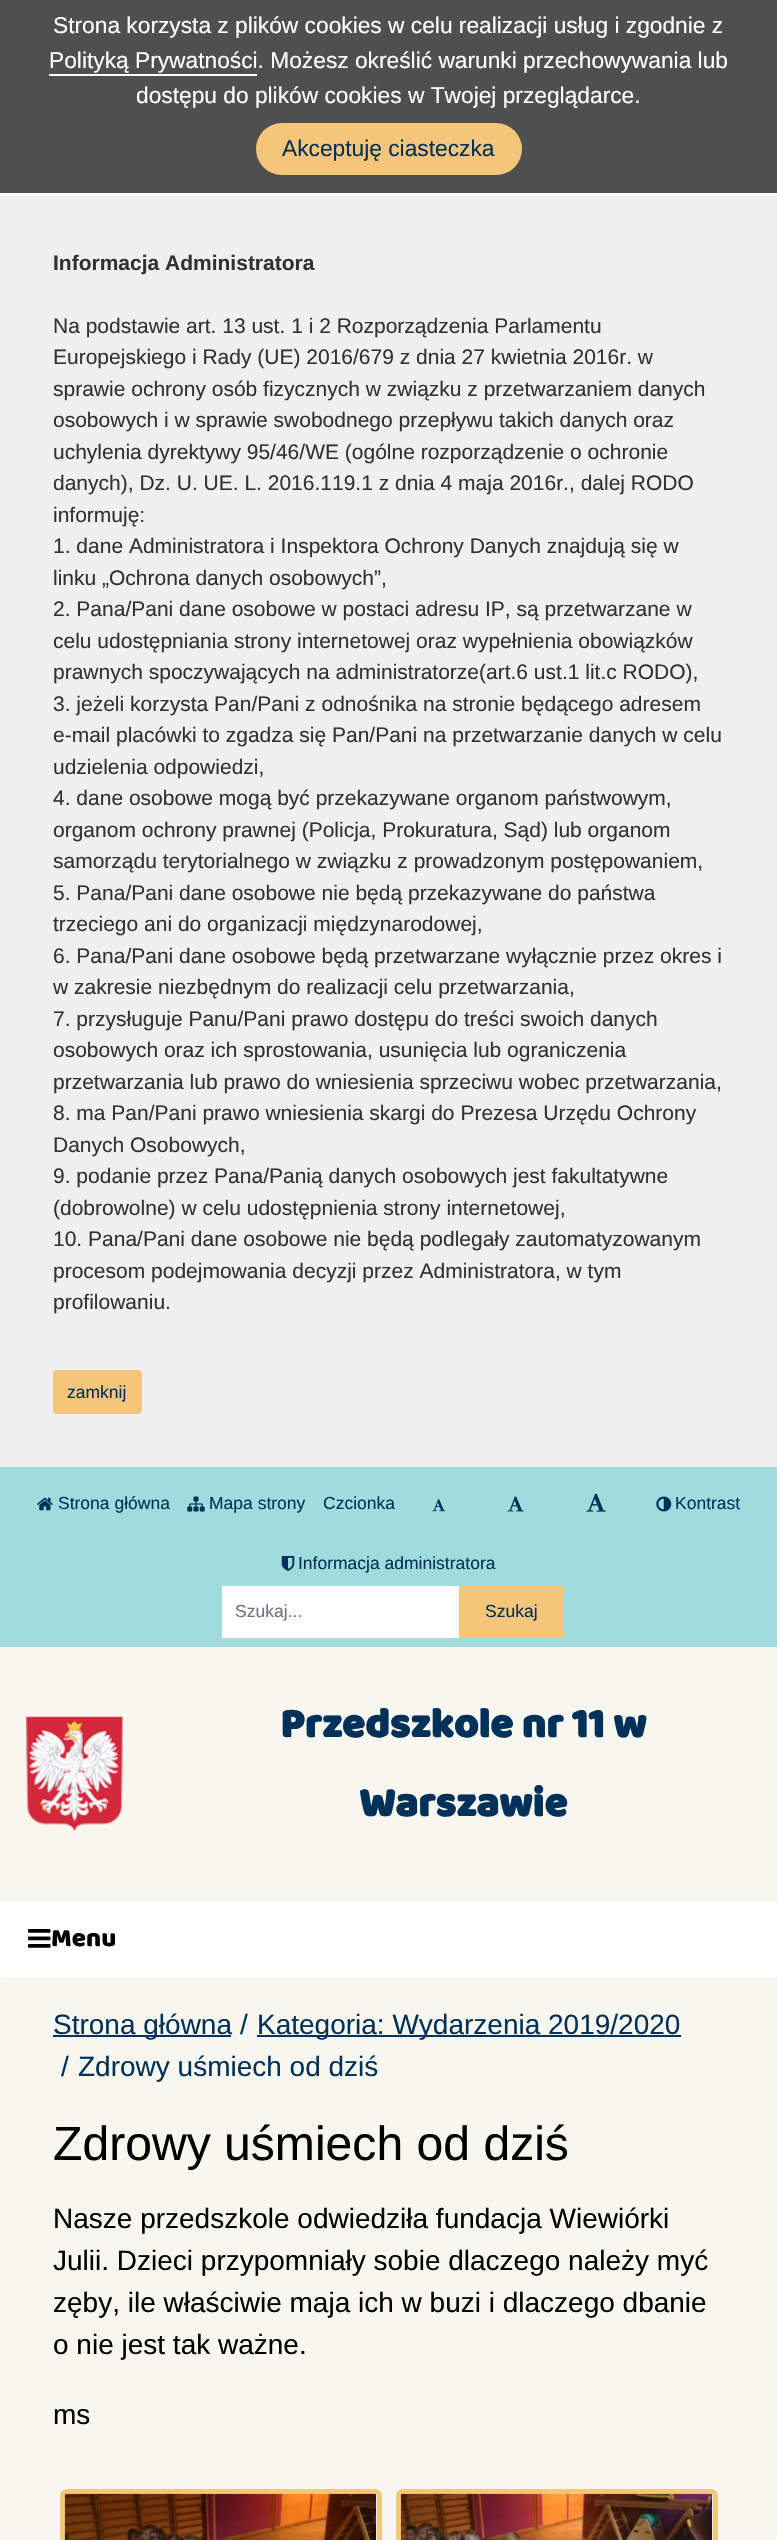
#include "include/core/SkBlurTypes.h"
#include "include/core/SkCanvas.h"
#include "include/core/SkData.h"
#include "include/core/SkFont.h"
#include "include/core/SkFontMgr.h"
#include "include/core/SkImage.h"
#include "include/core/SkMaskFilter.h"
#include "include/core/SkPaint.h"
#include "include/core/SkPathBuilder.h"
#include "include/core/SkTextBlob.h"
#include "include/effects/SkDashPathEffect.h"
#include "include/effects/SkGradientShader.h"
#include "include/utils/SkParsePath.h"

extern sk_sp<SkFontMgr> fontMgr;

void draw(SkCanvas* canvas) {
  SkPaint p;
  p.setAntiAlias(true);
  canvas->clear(SkColorSetRGB(247, 247, 239));
  p.setColor(SkColorSetRGB(79, 79, 79));
  canvas->drawRect(SkRect::MakeLTRB(0, 0, 777, 193), p);
  p.setColor(SK_ColorWHITE);
  canvas->drawRect(SkRect::MakeLTRB(49, 74, 257, 76), p);
  p.setColor(SkColorSetRGB(245, 198, 121));
  canvas->drawRoundRect(SkRect::MakeLTRB(256, 123, 522, 175), 26, 26, p);
  p.setColor(SkColorSetRGB(240, 240, 240));
  canvas->drawRect(SkRect::MakeLTRB(0, 195, 777, 1467), p);
  p.setColor(SK_ColorWHITE);
  canvas->drawRect(SkRect::MakeLTRB(0, 193, 777, 195), p);
  p.setColor(SkColorSetRGB(245, 198, 121));
  canvas->drawRoundRect(SkRect::MakeLTRB(54, 1371, 141, 1413), 3, 3, p);
  p.setStyle(SkPaint::kStroke_Style);
  p.setStrokeWidth(2);
  canvas->drawRoundRect(SkRect::MakeLTRB(54, 1371, 141, 1413), 3, 3, p);
  p.setStyle(SkPaint::kFill_Style);
  p.setColor(SkColorSetRGB(159, 220, 219));
  canvas->drawRect(SkRect::MakeLTRB(0, 1467, 777, 1647), p);
  canvas->drawImageRect(SkImages::DeferredFromEncodedData(SkData::MakeFromFileName("images/1.png")), SkRect::MakeLTRB(37, 1497, 53, 1511), SkSamplingOptions());
  canvas->drawImageRect(SkImages::DeferredFromEncodedData(SkData::MakeFromFileName("images/2.png")), SkRect::MakeLTRB(187, 1496, 205, 1512), SkSamplingOptions());
  canvas->drawImageRect(SkImages::DeferredFromEncodedData(SkData::MakeFromFileName("images/3.png")), SkRect::MakeLTRB(432, 1499, 446, 1512), SkSamplingOptions());
  canvas->drawImageRect(SkImages::DeferredFromEncodedData(SkData::MakeFromFileName("images/4.png")), SkRect::MakeLTRB(507, 1496, 524, 1512), SkSamplingOptions());
  canvas->drawImageRect(SkImages::DeferredFromEncodedData(SkData::MakeFromFileName("images/5.png")), SkRect::MakeLTRB(586, 1493, 606, 1512), SkSamplingOptions());
  canvas->drawImageRect(SkImages::DeferredFromEncodedData(SkData::MakeFromFileName("images/6.png")), SkRect::MakeLTRB(656, 1496, 672, 1512), SkSamplingOptions());
  canvas->drawImageRect(SkImages::DeferredFromEncodedData(SkData::MakeFromFileName("images/7.png")), SkRect::MakeLTRB(281, 1556, 295, 1571), SkSamplingOptions());
  p.setColor(SK_ColorWHITE);
  canvas->drawRect(SkRect::MakeLTRB(222, 1586, 459, 1638), p);
  p.setColor(SkColorSetRGB(245, 198, 121));
  canvas->drawRect(SkRect::MakeLTRB(459, 1586, 564, 1638), p);
  canvas->drawImageRect(SkImages::DeferredFromEncodedData(SkData::MakeFromFileName("images/8.png")), SkRect::MakeLTRB(26, 1716, 123, 1831), SkSamplingOptions());
  p.setColor(SK_ColorWHITE);
  canvas->drawRoundRect(SkRect::MakeLTRB(0, 1901, 777, 1978), 4, 4, p);
  canvas->drawImageRect(SkImages::DeferredFromEncodedData(SkData::MakeFromFileName("images/9.png")), SkRect::MakeLTRB(28, 1929, 51, 1948), SkSamplingOptions());
  p.setColor(SkColorSetRGB(0, 49, 90));
  canvas->drawRect(SkRect::MakeLTRB(53, 2035, 231, 2037), p);
  canvas->drawRect(SkRect::MakeLTRB(257, 2035, 681, 2037), p);
  p.setStyle(SkPaint::kStroke_Style);
  p.setStrokeWidth(5);
  p.setColor(SkColorSetRGB(245, 198, 121));
  canvas->drawRoundRect(SkRect::MakeLTRB(62.5f, 2491.5f, 379.5f, 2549.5f), 4.5f, 4.5f, p);
  canvas->drawImageRect(SkImages::DeferredFromEncodedData(SkData::MakeFromFileName("images/10.png")), SkRect::MakeLTRB(64, 2493, 377, 2540), SkSamplingOptions());
  canvas->drawRoundRect(SkRect::MakeLTRB(398.5f, 2491.5f, 715.5f, 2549.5f), 4.5f, 4.5f, p);
  canvas->drawImageRect(SkImages::DeferredFromEncodedData(SkData::MakeFromFileName("images/11.png")), SkRect::MakeLTRB(400, 2493, 713, 2540), SkSamplingOptions());
  SkFont font1(fontMgr->matchFamilyStyle("Liberation Sans", SkFontStyle::Normal()), 22.75f);
  font1.setSubpixel(true);
  p.setStyle(SkPaint::kFill_Style);
  p.setColor(SK_ColorWHITE);
  canvas->drawString("Strona korzysta z plików cookies w celu realizacji usług i zgodnie z", 53, 33, font1, p);
  canvas->drawString("Polityką Prywatności. Możesz określić warunki przechowywania lub", 49, 68, font1, p);
  canvas->drawString("dostępu do plików cookies w Twojej przeglądarce.", 136, 103, font1, p);
  p.setColor(SkColorSetRGB(0, 49, 90));
  canvas->drawString("Akceptuję ciasteczka", 282, 156, font1, p);
  SkFont font2(fontMgr->matchFamilyStyle("Liberation Sans", SkFontStyle::Bold()), 21);
  font2.setSubpixel(true);
  p.setColor(SkColorSetRGB(50, 50, 50));
  canvas->drawString("Informacja Administratora", 53, 270, font2, p);
  SkFont font3(fontMgr->matchFamilyStyle("Liberation Sans", SkFontStyle::Normal()), 21);
  font3.setSubpixel(true);
  canvas->drawString("Na podstawie art. 13 ust. 1 i 2 Rozporządzenia Parlamentu", 53, 333, font3, p);
  canvas->drawString("Europejskiego i Rady (UE) 2016/679 z dnia 27 kwietnia 2016r. w", 53, 364, font3, p);
  canvas->drawString("sprawie ochrony osób fizycznych w związku z przetwarzaniem danych", 53, 396, font3, p);
  canvas->drawString("osobowych i w sprawie swobodnego przepływu takich danych oraz", 53, 427, font3, p);
  canvas->drawString("uchylenia dyrektywy 95/46/WE (ogólne rozporządzenie o ochronie", 53, 459, font3, p);
  canvas->drawString("danych), Dz. U. UE. L. 2016.119.1 z dnia 4 maja 2016r., dalej RODO", 53, 490, font3, p);
  canvas->drawString("informuję:", 53, 522, font3, p);
  canvas->drawString("1. dane Administratora i Inspektora Ochrony Danych znajdują się w", 53, 553, font3, p);
  canvas->drawString("linku „Ochrona danych osobowych”,", 53, 585, font3, p);
  canvas->drawString("2. Pana/Pani dane osobowe w postaci adresu IP, są przetwarzane w", 53, 616, font3, p);
  canvas->drawString("celu udostępniania strony internetowej oraz wypełnienia obowiązków", 53, 648, font3, p);
  canvas->drawString("prawnych spoczywających na administratorze(art.6 ust.1 lit.c RODO),", 53, 679, font3, p);
  canvas->drawString("3. jeżeli korzysta Pan/Pani z odnośnika na stronie będącego adresem", 53, 711, font3, p);
  canvas->drawString("e-mail placówki to zgadza się Pan/Pani na przetwarzanie danych w celu", 53, 742, font3, p);
  canvas->drawString("udzielenia odpowiedzi,", 53, 774, font3, p);
  canvas->drawString("4. dane osobowe mogą być przekazywane organom państwowym,", 53, 805, font3, p);
  canvas->drawString("organom ochrony prawnej (Policja, Prokuratura, Sąd) lub organom", 53, 837, font3, p);
  canvas->drawString("samorządu terytorialnego w związku z prowadzonym postępowaniem,", 53, 868, font3, p);
  canvas->drawString("5. Pana/Pani dane osobowe nie będą przekazywane do państwa", 53, 900, font3, p);
  canvas->drawString("trzeciego ani do organizacji międzynarodowej,", 53, 931, font3, p);
  canvas->drawString("6. Pana/Pani dane osobowe będą przetwarzane wyłącznie przez okres i", 53, 963, font3, p);
  canvas->drawString("w zakresie niezbędnym do realizacji celu przetwarzania,", 53, 994, font3, p);
  canvas->drawString("7. przysługuje Panu/Pani prawo dostępu do treści swoich danych", 53, 1026, font3, p);
  canvas->drawString("osobowych oraz ich sprostowania, usunięcia lub ograniczenia", 53, 1057, font3, p);
  canvas->drawString("przetwarzania lub prawo do wniesienia sprzeciwu wobec przetwarzania,", 53, 1089, font3, p);
  canvas->drawString("8. ma Pan/Pani prawo wniesienia skargi do Prezesa Urzędu Ochrony", 53, 1120, font3, p);
  canvas->drawString("Danych Osobowych,", 53, 1152, font3, p);
  canvas->drawString("9. podanie przez Pana/Panią danych osobowych jest fakultatywne", 53, 1183, font3, p);
  canvas->drawString("(dobrowolne) w celu udostępnienia strony internetowej,", 53, 1215, font3, p);
  canvas->drawString("10. Pana/Pani dane osobowe nie będą podlegały zautomatyzowanym", 53, 1246, font3, p);
  canvas->drawString("procesom podejmowania decyzji przez Administratora, w tym", 53, 1278, font3, p);
  canvas->drawString("profilowaniu.", 53, 1309, font3, p);
  SkFont font4(fontMgr->matchFamilyStyle("Liberation Sans", SkFontStyle::Normal()), 17.5f);
  font4.setSubpixel(true);
  p.setColor(SkColorSetRGB(0, 49, 90));
  canvas->drawString("zamknij", 67, 1398, font4, p);
  canvas->drawString("Strona główna", 58, 1509, font4, p);
  canvas->drawString("Mapa strony", 209, 1509, font4, p);
  canvas->drawString("Czcionka", 323, 1509, font4, p);
  canvas->drawString("Kontrast", 675, 1509, font4, p);
  canvas->drawString("Informacja administratora", 298, 1569, font4, p);
  p.setColor(SkColorSetRGB(108, 117, 125));
  canvas->drawString("Szukaj...", 235, 1617, font4, p);
  p.setColor(SkColorSetRGB(0, 49, 90));
  canvas->drawString("Szukaj", 485, 1617, font4, p);
  SkFont font5(fontMgr->matchFamilyStyle("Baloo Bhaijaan", SkFontStyle::Bold()), 42);
  font5.setSubpixel(true);
  canvas->drawString("Przedszkole nr 11 w", 280, 1737, font5, p);
  canvas->drawString("Warszawie", 359, 1816, font5, p);
  SkFont font6(fontMgr->matchFamilyStyle("Baloo Bhaijaan", SkFontStyle::Normal()), 26);
  font6.setSubpixel(true);
  p.setColor(SK_ColorBLACK);
  canvas->drawString("Menu", 51, 1946, font6, p);
  SkFont font7(fontMgr->matchFamilyStyle("Liberation Sans", SkFontStyle::Normal()), 28);
  font7.setSubpixel(true);
  p.setColor(SkColorSetRGB(0, 49, 90));
  canvas->drawString("Strona główna", 53, 2034, font7, p);
  canvas->drawString("/", 240, 2034, font7, p);
  canvas->drawString("Kategoria: Wydarzenia 2019/2020", 257, 2034, font7, p);
  canvas->drawString("/", 61, 2076, font7, p);
  canvas->drawString("Zdrowy uśmiech od dziś", 78, 2076, font7, p);
  SkFont font8(fontMgr->matchFamilyStyle("Liberation Sans", SkFontStyle::Normal()), 48.1f);
  font8.setSubpixel(true);
  p.setColor(SK_ColorBLACK);
  canvas->drawString("Zdrowy uśmiech od dziś", 53, 2160, font8, p);
  canvas->drawString("Nasze przedszkole odwiedziła fundacja Wiewiórki", 53, 2228, font7, p);
  canvas->drawString("Julii. Dzieci przypomniały sobie dlaczego należy myć", 53, 2270, font7, p);
  canvas->drawString("zęby, ile właściwie maja ich w buzi i dlaczego dbanie", 53, 2312, font7, p);
  canvas->drawString("o nie jest tak ważne.", 53, 2354, font7, p);
  canvas->drawString("ms", 53, 2424, font7, p);
}
